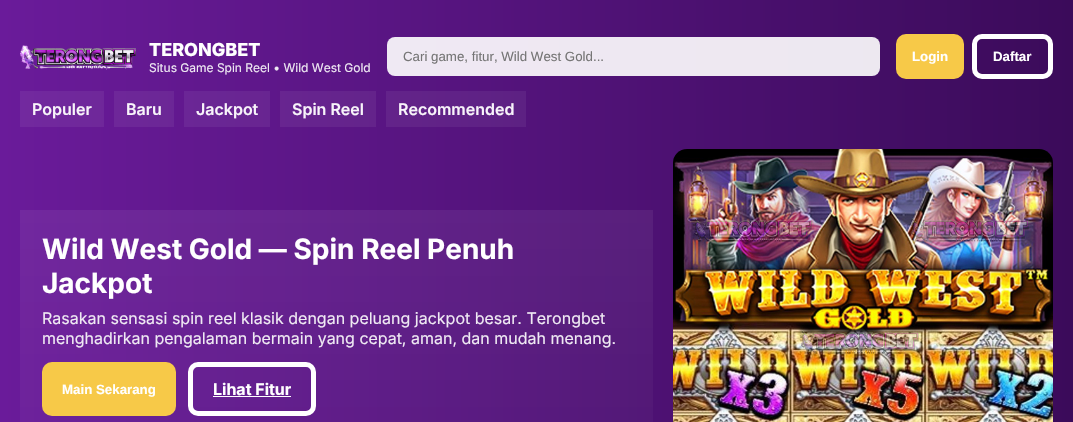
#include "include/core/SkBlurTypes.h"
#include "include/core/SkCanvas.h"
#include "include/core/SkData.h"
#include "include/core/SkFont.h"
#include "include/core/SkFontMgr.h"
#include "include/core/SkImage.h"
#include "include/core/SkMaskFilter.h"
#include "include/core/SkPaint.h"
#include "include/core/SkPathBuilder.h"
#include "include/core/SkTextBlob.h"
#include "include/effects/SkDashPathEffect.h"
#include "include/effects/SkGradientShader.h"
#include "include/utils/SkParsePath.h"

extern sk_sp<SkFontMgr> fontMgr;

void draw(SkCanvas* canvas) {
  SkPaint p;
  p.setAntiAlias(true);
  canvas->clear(SK_ColorWHITE);
  {
    const SkColor colors[] = {SkColorSetRGB(106, 27, 154), SkColorSetRGB(59, 11, 90)};
    const float stops[] = {0, 1};
    const SkPoint ends[] = {{0, 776}, {1073, 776}};
    p.setShader(SkGradientShader::MakeLinear(ends, colors, stops, 2, SkTileMode::kClamp));
    p.setAlpha(255);
  }
  canvas->drawRect(SkRect::MakeLTRB(0, 0, 1073, 422), p);
  canvas->drawImageRect(SkImages::DeferredFromEncodedData(SkData::MakeFromFileName("images/1.png")), SkRect::MakeLTRB(20, 45, 136, 70), SkSamplingOptions());
  p.setShader(nullptr);
  p.setColor(SkColorSetARGB(230, 255, 255, 255));
  canvas->drawRoundRect(SkRect::MakeLTRB(387, 37, 880, 76), 8, 8, p);
  p.setColor(SkColorSetRGB(247, 201, 72));
  canvas->drawRoundRect(SkRect::MakeLTRB(896, 34, 964, 79), 10, 10, p);
  p.setStyle(SkPaint::kStroke_Style);
  p.setStrokeWidth(5);
  p.setColor(SK_ColorWHITE);
  canvas->drawRoundRect(SkRect::MakeLTRB(974.5f, 36.5f, 1050.5f, 76.5f), 7.5f, 7.5f, p);
  p.setStyle(SkPaint::kFill_Style);
  p.setColor(SkColorSetARGB(15, 255, 255, 255));
  canvas->drawRect(SkRect::MakeLTRB(20, 91, 104, 127), p);
  canvas->drawRect(SkRect::MakeLTRB(114, 91, 174, 127), p);
  canvas->drawRect(SkRect::MakeLTRB(184, 91, 270, 127), p);
  canvas->drawRect(SkRect::MakeLTRB(280, 91, 376, 127), p);
  canvas->drawRect(SkRect::MakeLTRB(386, 91, 526, 127), p);
  {
    const SkColor colors[] = {SkColorSetARGB(15, 255, 255, 255), SkColorSetARGB(5, 255, 255, 255)};
    const float stops[] = {0, 1};
    const SkPoint ends[] = {{337, 210}, {337, 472}};
    p.setShader(SkGradientShader::MakeLinear(ends, colors, stops, 2, SkTileMode::kClamp));
    p.setAlpha(255);
  }
  canvas->drawRect(SkRect::MakeLTRB(20, 210, 653, 422), p);
  p.setShader(nullptr);
  p.setColor(SkColorSetRGB(247, 201, 72));
  canvas->drawRoundRect(SkRect::MakeLTRB(42, 362, 176, 416), 10, 10, p);
  p.setStyle(SkPaint::kStroke_Style);
  p.setColor(SK_ColorWHITE);
  canvas->drawRoundRect(SkRect::MakeLTRB(190.5f, 364.5f, 313.5f, 413.5f), 7.5f, 7.5f, p);
  p.setStyle(SkPaint::kFill_Style);
  canvas->drawRect(SkRect::MakeLTRB(213, 396, 291, 397), p);
  canvas->drawImageRect(SkImages::DeferredFromEncodedData(SkData::MakeFromFileName("images/2.png")), SkRect::MakeLTRB(673, 149, 1053, 422), SkSamplingOptions());
  SkFont font1(fontMgr->matchFamilyStyle("Inter", SkFontStyle(800, SkFontStyle::kNormal_Width, SkFontStyle::kUpright_Slant)), 18);
  font1.setSubpixel(true);
  canvas->drawString("TERONGBET", 149, 56, font1, p);
  SkFont font2(fontMgr->matchFamilyStyle("Inter", SkFontStyle::Normal()), 12);
  font2.setSubpixel(true);
  p.setColor(SkColorSetRGB(239, 233, 243));
  canvas->drawString("Situs Game Spin Reel • Wild West Gold", 149, 72, font2, p);
  SkFont font3(fontMgr->matchFamilyStyle("Liberation Sans", SkFontStyle::Normal()), 13.3f);
  font3.setSubpixel(true);
  p.setColor(SkColorSetRGB(117, 117, 117));
  canvas->drawString("Cari game, fitur, Wild West Gold...", 403, 61, font3, p);
  SkFont font4(fontMgr->matchFamilyStyle("Liberation Sans", SkFontStyle::Bold()), 13.3f);
  font4.setSubpixel(true);
  p.setColor(SK_ColorWHITE);
  canvas->drawString("Login", 912, 61, font4, p);
  canvas->drawString("Daftar", 993, 61, font4, p);
  SkFont font5(fontMgr->matchFamilyStyle("Inter", SkFontStyle(600, SkFontStyle::kNormal_Width, SkFontStyle::kUpright_Slant)), 16);
  font5.setSubpixel(true);
  p.setColor(SkColorSetRGB(248, 244, 250));
  canvas->drawString("Populer", 32, 115, font5, p);
  canvas->drawString("Baru", 126, 115, font5, p);
  canvas->drawString("Jackpot", 196, 115, font5, p);
  canvas->drawString("Spin Reel", 292, 115, font5, p);
  canvas->drawString("Recommended", 398, 115, font5, p);
  SkFont font6(fontMgr->matchFamilyStyle("Inter", SkFontStyle::Bold()), 28);
  font6.setSubpixel(true);
  p.setColor(SK_ColorWHITE);
  canvas->drawString("Wild West Gold — Spin Reel Penuh", 42, 259, font6, p);
  canvas->drawString("Jackpot", 42, 293, font6, p);
  SkFont font7(fontMgr->matchFamilyStyle("Inter", SkFontStyle::Normal()), 16);
  font7.setSubpixel(true);
  p.setColor(SkColorSetRGB(239, 233, 243));
  canvas->drawString("Rasakan sensasi spin reel klasik dengan peluang jackpot besar. Terongbet", 42, 324, font7, p);
  canvas->drawString("menghadirkan pengalaman bermain yang cepat, aman, dan mudah menang.", 42, 344, font7, p);
  p.setColor(SK_ColorWHITE);
  canvas->drawString("Main Sekarang", 62, 394, font4, p);
  SkFont font8(fontMgr->matchFamilyStyle("Inter", SkFontStyle::Bold()), 16);
  font8.setSubpixel(true);
  canvas->drawString("Lihat Fitur", 213, 395, font8, p);
}
